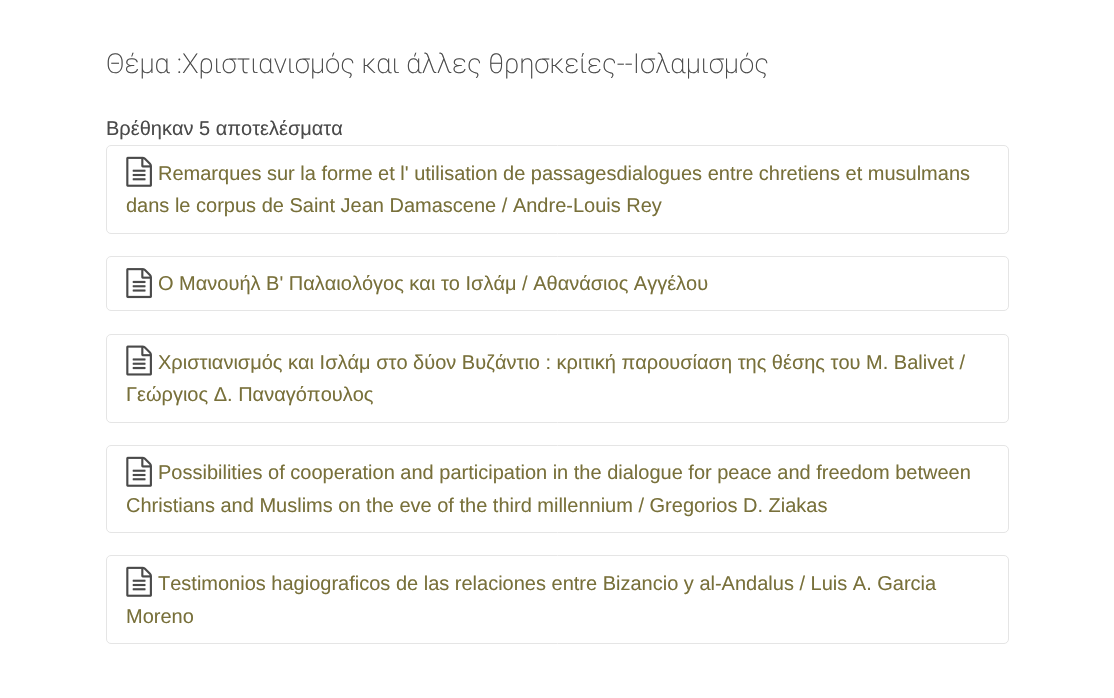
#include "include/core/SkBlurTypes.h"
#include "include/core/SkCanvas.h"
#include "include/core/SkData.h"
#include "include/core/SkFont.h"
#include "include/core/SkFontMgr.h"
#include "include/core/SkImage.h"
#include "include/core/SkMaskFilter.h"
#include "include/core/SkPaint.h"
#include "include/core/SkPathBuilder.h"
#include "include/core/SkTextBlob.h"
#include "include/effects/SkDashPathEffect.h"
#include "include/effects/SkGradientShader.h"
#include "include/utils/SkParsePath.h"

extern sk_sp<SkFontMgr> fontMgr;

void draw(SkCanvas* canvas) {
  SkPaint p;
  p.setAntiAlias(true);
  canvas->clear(SK_ColorWHITE);
  p.setStyle(SkPaint::kStroke_Style);
  p.setStrokeWidth(1);
  p.setColor(SkColorSetRGB(229, 229, 229));
  canvas->drawRoundRect(SkRect::MakeLTRB(106.5f, 145.5f, 1008.5f, 233.5f), 4.5f, 4.5f, p);
  canvas->drawImageRect(SkImages::DeferredFromEncodedData(SkData::MakeFromFileName("images/1.png")), SkRect::MakeLTRB(126, 156, 152, 187), SkSamplingOptions());
  canvas->drawRoundRect(SkRect::MakeLTRB(106.5f, 256.5f, 1008.5f, 310.5f), 4.5f, 4.5f, p);
  canvas->drawImageRect(SkImages::DeferredFromEncodedData(SkData::MakeFromFileName("images/2.png")), SkRect::MakeLTRB(126, 268, 152, 299), SkSamplingOptions());
  canvas->drawRoundRect(SkRect::MakeLTRB(106.5f, 334.5f, 1008.5f, 422.5f), 4.5f, 4.5f, p);
  canvas->drawImageRect(SkImages::DeferredFromEncodedData(SkData::MakeFromFileName("images/3.png")), SkRect::MakeLTRB(126, 345, 152, 376), SkSamplingOptions());
  canvas->drawRoundRect(SkRect::MakeLTRB(106.5f, 445.5f, 1008.5f, 532.5f), 4.5f, 4.5f, p);
  canvas->drawImageRect(SkImages::DeferredFromEncodedData(SkData::MakeFromFileName("images/1.png")), SkRect::MakeLTRB(126, 456, 152, 487), SkSamplingOptions());
  canvas->drawRoundRect(SkRect::MakeLTRB(106.5f, 555.5f, 1008.5f, 643.5f), 4.5f, 4.5f, p);
  canvas->drawImageRect(SkImages::DeferredFromEncodedData(SkData::MakeFromFileName("images/1.png")), SkRect::MakeLTRB(126, 566, 152, 597), SkSamplingOptions());
  SkFont font1(fontMgr->matchFamilyStyle("Roboto", SkFontStyle(200, SkFontStyle::kNormal_Width, SkFontStyle::kUpright_Slant)), 27.5f);
  font1.setSubpixel(true);
  p.setStyle(SkPaint::kFill_Style);
  p.setColor(SkColorSetRGB(74, 74, 74));
  canvas->drawString("Θέμα :Χριστιανισμός και άλλες θρησκείες--Ισλαμισμός", 106, 73, font1, p);
  SkFont font2(fontMgr->matchFamilyStyle("Liberation Sans", SkFontStyle::Normal()), 20);
  font2.setSubpixel(true);
  canvas->drawString("Βρέθηκαν 5 αποτελέσματα", 106, 135, font2, p);
  p.setColor(SkColorSetRGB(120, 112, 58));
  canvas->drawString("Remarques sur la forme et l' utilisation de passagesdialogues entre chretiens et musulmans", 158, 180, font2, p);
  canvas->drawString("dans le corpus de Saint Jean Damascene / Andre-Louis Rey", 126, 212, font2, p);
  canvas->drawString("Ο Μανουήλ Β' Παλαιολόγος και το Ισλάμ / Αθανάσιος Αγγέλου", 158, 290, font2, p);
  canvas->drawString("Χριστιανισμός και Ισλάμ στο δύον Βυζάντιο : κριτική παρουσίαση της θέσης του M. Balivet /", 158, 369, font2, p);
  canvas->drawString("Γεώργιος Δ. Παναγόπουλος", 126, 401, font2, p);
  canvas->drawString("Possibilities of cooperation and participation in the dialogue for peace and freedom between", 158, 479, font2, p);
  canvas->drawString("Christians and Muslims on the eve of the third millennium / Gregorios D. Ziakas", 126, 512, font2, p);
  canvas->drawString("Testimonios hagiograficos de las relaciones entre Bizancio y al-Andalus / Luis A. Garcia", 158, 590, font2, p);
  canvas->drawString("Moreno", 126, 623, font2, p);
}
